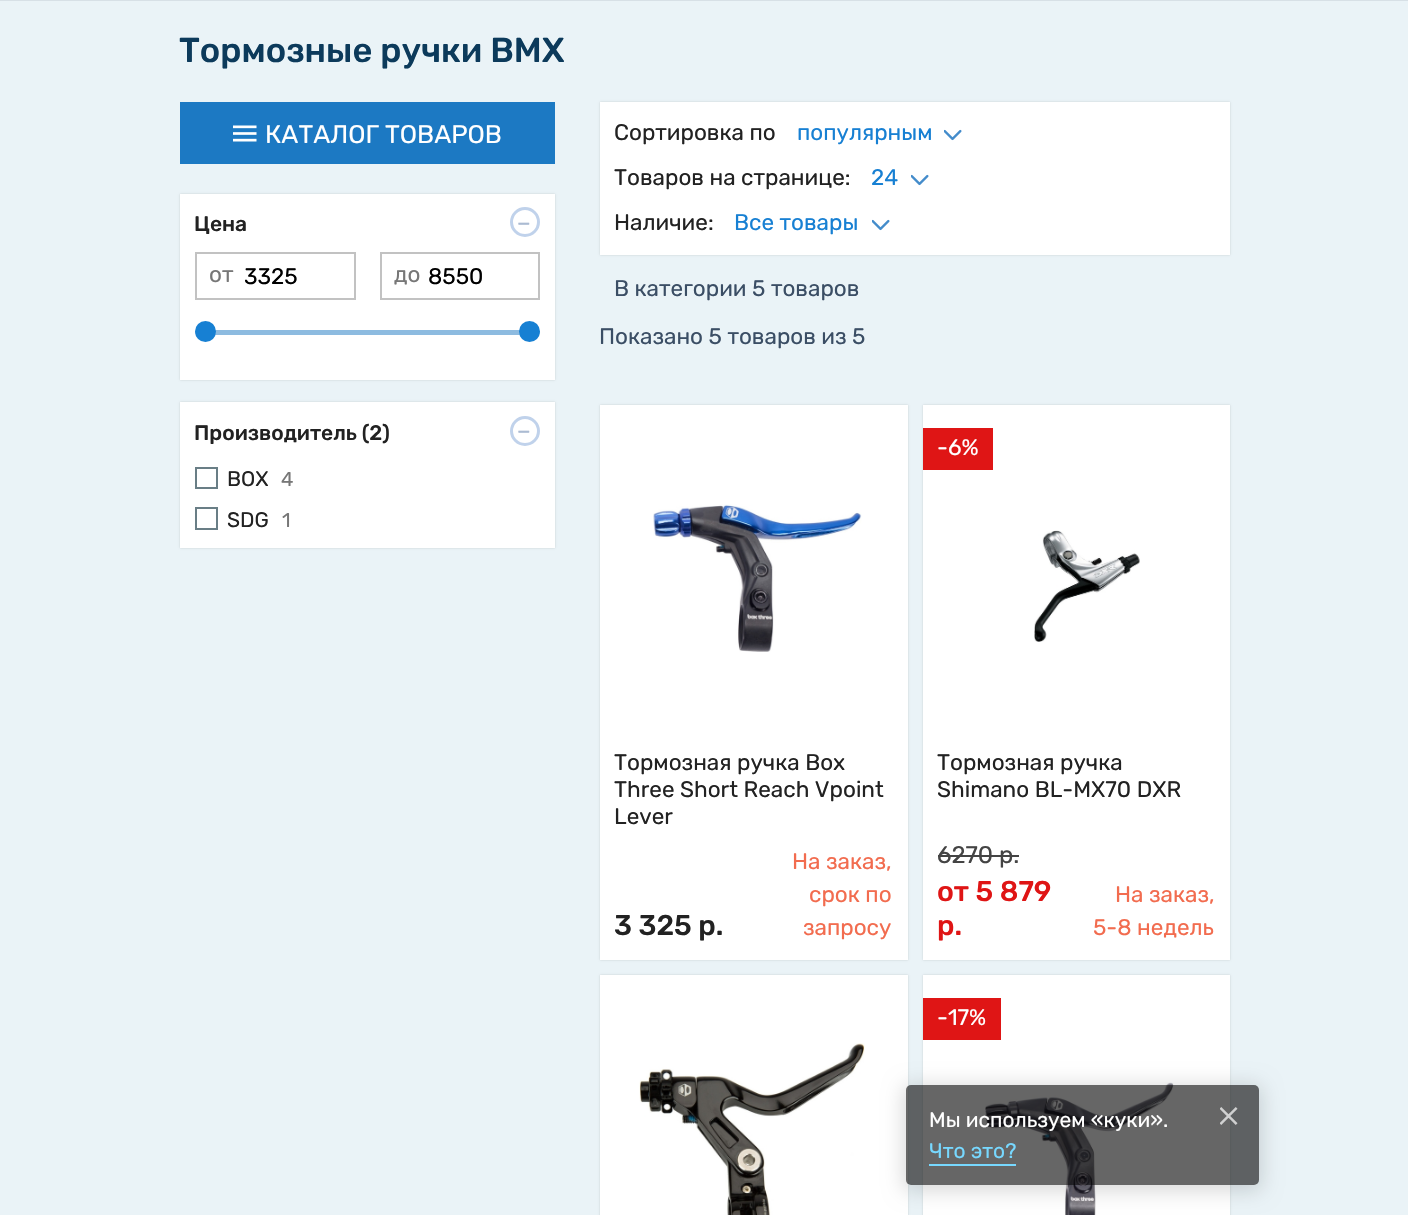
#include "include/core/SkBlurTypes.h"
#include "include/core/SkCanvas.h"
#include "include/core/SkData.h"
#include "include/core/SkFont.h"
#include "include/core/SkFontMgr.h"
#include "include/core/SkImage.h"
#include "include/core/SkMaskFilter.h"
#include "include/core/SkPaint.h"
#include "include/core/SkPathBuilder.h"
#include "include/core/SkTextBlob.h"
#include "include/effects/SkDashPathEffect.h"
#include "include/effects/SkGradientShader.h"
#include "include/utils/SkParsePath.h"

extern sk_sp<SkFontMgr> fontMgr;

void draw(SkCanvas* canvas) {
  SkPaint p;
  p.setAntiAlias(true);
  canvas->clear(SkColorSetRGB(234, 243, 247));
  p.setColor(SkColorSetRGB(215, 224, 230));
  canvas->drawRect(SkRect::MakeLTRB(0, 0, 1408, 1), p);
  p.setColor(SkColorSetRGB(28, 121, 195));
  canvas->drawRect(SkRect::MakeLTRB(180, 102, 555, 164), p);
  canvas->drawImageRect(SkImages::DeferredFromEncodedData(SkData::MakeFromFileName("images/1.png")), SkRect::MakeLTRB(233, 125, 257, 142), SkSamplingOptions());
  p.setColor(SkColorSetARGB(38, 0, 0, 0));
  p.setMaskFilter(SkMaskFilter::MakeBlur(kNormal_SkBlurStyle, 1));
  canvas->drawRect(SkRect::MakeLTRB(180, 194, 555, 380), p);
  p.setMaskFilter(nullptr);
  p.setColor(SK_ColorWHITE);
  canvas->drawRect(SkRect::MakeLTRB(180, 194, 555, 380), p);
  p.setStyle(SkPaint::kStroke_Style);
  p.setStrokeWidth(3);
  p.setColor(SkColorSetRGB(192, 210, 235));
  canvas->drawCircle(525, 222, 13.5f, p);
  p.setStrokeWidth(2);
  p.setColor(SkColorSetRGB(194, 194, 194));
  canvas->drawRect(SkRect::MakeLTRB(196, 253, 355, 299), p);
  canvas->drawRect(SkRect::MakeLTRB(381, 253, 539, 299), p);
  p.setStyle(SkPaint::kFill_Style);
  p.setColor(SkColorSetRGB(141, 187, 224));
  canvas->drawRoundRect(SkRect::MakeLTRB(195, 330, 540, 335), 2.5f, 2.5f, p);
  p.setColor(SkColorSetRGB(23, 128, 211));
  canvas->drawCircle(205.5f, 331.5f, 10.5f, p);
  canvas->drawCircle(529.5f, 331.5f, 10.5f, p);
  p.setColor(SkColorSetARGB(38, 0, 0, 0));
  p.setMaskFilter(SkMaskFilter::MakeBlur(kNormal_SkBlurStyle, 1));
  canvas->drawRect(SkRect::MakeLTRB(180, 402, 555, 548), p);
  p.setMaskFilter(nullptr);
  p.setColor(SK_ColorWHITE);
  canvas->drawRect(SkRect::MakeLTRB(180, 402, 555, 548), p);
  p.setStyle(SkPaint::kStroke_Style);
  p.setStrokeWidth(3);
  p.setColor(SkColorSetRGB(192, 210, 235));
  canvas->drawCircle(525, 431, 13.5f, p);
  p.setStrokeWidth(2);
  p.setColor(SkColorSetRGB(105, 126, 134));
  canvas->drawRect(SkRect::MakeLTRB(196, 468, 217, 488), p);
  canvas->drawRect(SkRect::MakeLTRB(196, 508, 217, 529), p);
  p.setStyle(SkPaint::kFill_Style);
  p.setColor(SkColorSetARGB(38, 0, 0, 0));
  p.setMaskFilter(SkMaskFilter::MakeBlur(kNormal_SkBlurStyle, 1));
  canvas->drawRect(SkRect::MakeLTRB(600, 102, 1230, 255), p);
  p.setMaskFilter(nullptr);
  p.setColor(SK_ColorWHITE);
  canvas->drawRect(SkRect::MakeLTRB(600, 102, 1230, 255), p);
  canvas->drawImageRect(SkImages::DeferredFromEncodedData(SkData::MakeFromFileName("images/2.png")), SkRect::MakeLTRB(944, 129, 962, 141), SkSamplingOptions());
  canvas->drawImageRect(SkImages::DeferredFromEncodedData(SkData::MakeFromFileName("images/2.png")), SkRect::MakeLTRB(911, 174, 929, 186), SkSamplingOptions());
  canvas->drawImageRect(SkImages::DeferredFromEncodedData(SkData::MakeFromFileName("images/2.png")), SkRect::MakeLTRB(872, 219, 890, 231), SkSamplingOptions());
  p.setColor(SkColorSetARGB(38, 0, 0, 0));
  p.setMaskFilter(SkMaskFilter::MakeBlur(kNormal_SkBlurStyle, 1));
  canvas->drawRect(SkRect::MakeLTRB(600, 405, 908, 960), p);
  p.setMaskFilter(nullptr);
  p.setColor(SK_ColorWHITE);
  canvas->drawRect(SkRect::MakeLTRB(600, 405, 908, 960), p);
  canvas->drawImageRect(SkImages::DeferredFromEncodedData(SkData::MakeFromFileName("images/3.png")), SkRect::MakeLTRB(653, 504, 862, 652), SkSamplingOptions());
  p.setColor(SkColorSetARGB(38, 0, 0, 0));
  p.setMaskFilter(SkMaskFilter::MakeBlur(kNormal_SkBlurStyle, 1));
  canvas->drawRect(SkRect::MakeLTRB(923, 405, 1230, 960), p);
  p.setMaskFilter(nullptr);
  p.setColor(SK_ColorWHITE);
  canvas->drawRect(SkRect::MakeLTRB(923, 405, 1230, 960), p);
  p.setColor(SkColorSetRGB(223, 21, 21));
  canvas->drawRect(SkRect::MakeLTRB(923, 428, 993, 470), p);
  canvas->drawImageRect(SkImages::DeferredFromEncodedData(SkData::MakeFromFileName("images/4.png")), SkRect::MakeLTRB(1034, 530, 1140, 642), SkSamplingOptions());
  p.setColor(SkColorSetRGB(68, 68, 68));
  canvas->drawRect(SkRect::MakeLTRB(938, 855, 1019, 857), p);
  p.setColor(SkColorSetARGB(38, 0, 0, 0));
  p.setMaskFilter(SkMaskFilter::MakeBlur(kNormal_SkBlurStyle, 1));
  canvas->drawRect(SkRect::MakeLTRB(600, 975, 908, 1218), p);
  p.setMaskFilter(nullptr);
  p.setColor(SK_ColorWHITE);
  canvas->drawRect(SkRect::MakeLTRB(600, 975, 908, 1215), p);
  canvas->drawImageRect(SkImages::DeferredFromEncodedData(SkData::MakeFromFileName("images/5.png")), SkRect::MakeLTRB(639, 1043, 865, 1215), SkSamplingOptions());
  p.setColor(SkColorSetARGB(38, 0, 0, 0));
  p.setMaskFilter(SkMaskFilter::MakeBlur(kNormal_SkBlurStyle, 1));
  canvas->drawRect(SkRect::MakeLTRB(923, 975, 1230, 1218), p);
  p.setMaskFilter(nullptr);
  p.setColor(SK_ColorWHITE);
  canvas->drawRect(SkRect::MakeLTRB(923, 975, 1230, 1215), p);
  p.setColor(SkColorSetRGB(223, 21, 21));
  canvas->drawRect(SkRect::MakeLTRB(923, 998, 1001, 1040), p);
  canvas->drawImageRect(SkImages::DeferredFromEncodedData(SkData::MakeFromFileName("images/6.png")), SkRect::MakeLTRB(985, 1082, 1174, 1215), SkSamplingOptions());
  canvas->save();
  canvas->clipPath(SkPathBuilder(SkPathFillType::kEvenOdd).moveTo(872, 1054).lineTo(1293, 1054).lineTo(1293, 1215).lineTo(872, 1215).close().moveTo(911, 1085).lineTo(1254, 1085).cubicTo(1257, 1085, 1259, 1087, 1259, 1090).lineTo(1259, 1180).cubicTo(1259, 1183, 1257, 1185, 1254, 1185).lineTo(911, 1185).cubicTo(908, 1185, 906, 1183, 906, 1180).lineTo(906, 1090).cubicTo(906, 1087, 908, 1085, 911, 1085).close().detach(), true);
  p.setColor(SkColorSetARGB(38, 0, 0, 0));
  p.setMaskFilter(SkMaskFilter::MakeBlur(kNormal_SkBlurStyle, 10));
  canvas->drawRoundRect(SkRect::MakeLTRB(903, 1085, 1262, 1191), 8, 8, p);
  p.setMaskFilter(nullptr);
  canvas->restore();
  p.setColor(SkColorSetARGB(153, 0, 0, 0));
  canvas->drawRoundRect(SkRect::MakeLTRB(906, 1085, 1259, 1185), 5, 5, p);
  p.setColor(SkColorSetRGB(119, 216, 255));
  canvas->drawRect(SkRect::MakeLTRB(929, 1164, 1016, 1166), p);
  canvas->drawImageRect(SkImages::DeferredFromEncodedData(SkData::MakeFromFileName("images/7.png")), SkRect::MakeLTRB(1220, 1107, 1238, 1125), SkSamplingOptions());
  SkFont font1(fontMgr->matchFamilyStyle("Rubik", SkFontStyle(500, SkFontStyle::kNormal_Width, SkFontStyle::kUpright_Slant)), 34.5f);
  font1.setSubpixel(true);
  p.setColor(SkColorSetRGB(12, 58, 91));
  canvas->drawString("Тормозные ручки ВМХ", 179, 62, font1, p);
  SkFont font2(fontMgr->matchFamilyStyle("Rubik", SkFontStyle::Normal()), 25.5f);
  font2.setSubpixel(true);
  p.setColor(SK_ColorWHITE);
  canvas->drawString("КАТАЛОГ ТОВАРОВ", 265, 143, font2, p);
  SkFont font3(fontMgr->matchFamilyStyle("Rubik", SkFontStyle(500, SkFontStyle::kNormal_Width, SkFontStyle::kUpright_Slant)), 21);
  font3.setSubpixel(true);
  p.setColor(SkColorSetRGB(34, 34, 34));
  canvas->drawString("Цена", 194, 231, font3, p);
  p.setColor(SkColorSetRGB(171, 187, 210));
  canvas->drawString("−", 517, 230, font3, p);
  SkFont font4(fontMgr->matchFamilyStyle("Rubik", SkFontStyle::Normal()), 22.5f);
  font4.setSubpixel(true);
  p.setColor(SkColorSetRGB(119, 119, 119));
  canvas->drawString("от", 209, 282, font4, p);
  p.setColor(SK_ColorBLACK);
  canvas->drawString("3325", 244, 284, font4, p);
  p.setColor(SkColorSetRGB(119, 119, 119));
  canvas->drawString("до", 394, 282, font4, p);
  p.setColor(SK_ColorBLACK);
  canvas->drawString("8550", 428, 284, font4, p);
  p.setColor(SkColorSetRGB(34, 34, 34));
  canvas->drawString("Производитель (2)", 194, 440, font3, p);
  p.setColor(SkColorSetRGB(171, 187, 210));
  canvas->drawString("−", 517, 438, font3, p);
  SkFont font5(fontMgr->matchFamilyStyle("Rubik", SkFontStyle::Normal()), 21);
  font5.setSubpixel(true);
  p.setColor(SkColorSetRGB(34, 34, 34));
  canvas->drawString("BOX", 227, 486, font5, p);
  SkFont font6(fontMgr->matchFamilyStyle("Rubik", SkFontStyle::Normal()), 20);
  font6.setSubpixel(true);
  p.setColor(SkColorSetRGB(119, 119, 119));
  canvas->drawString("4", 281, 486, font6, p);
  p.setColor(SkColorSetRGB(34, 34, 34));
  canvas->drawString("SDG", 227, 527, font5, p);
  p.setColor(SkColorSetRGB(119, 119, 119));
  canvas->drawString("1", 282, 527, font6, p);
  p.setColor(SkColorSetRGB(34, 34, 34));
  canvas->drawString("Сортировка по", 614, 140, font4, p);
  p.setColor(SkColorSetRGB(23, 128, 211));
  canvas->drawString("популярным", 797, 140, font4, p);
  p.setColor(SkColorSetRGB(34, 34, 34));
  canvas->drawString("Товаров на странице:", 614, 185, font4, p);
  p.setColor(SkColorSetRGB(23, 128, 211));
  canvas->drawString("24", 871, 185, font4, p);
  p.setColor(SkColorSetRGB(34, 34, 34));
  canvas->drawString("Наличие:", 614, 230, font4, p);
  p.setColor(SkColorSetRGB(23, 128, 211));
  canvas->drawString("Все товары", 734, 230, font4, p);
  p.setColor(SkColorSetRGB(59, 78, 101));
  canvas->drawString("В категории 5 товаров", 614, 296, font4, p);
  canvas->drawString("Показано 5 товаров из 5", 599, 344, font4, p);
  p.setColor(SkColorSetRGB(34, 34, 34));
  canvas->drawString("Тормозная ручка Box", 614, 770, font4, p);
  canvas->drawString("Three Short Reach Vpoint", 614, 797, font4, p);
  canvas->drawString("Lever", 614, 824, font4, p);
  SkFont font7(fontMgr->matchFamilyStyle("Rubik", SkFontStyle(500, SkFontStyle::kNormal_Width, SkFontStyle::kUpright_Slant)), 28.5f);
  font7.setSubpixel(true);
  canvas->drawString("3 325 р.", 614, 935, font7, p);
  p.setColor(SkColorSetRGB(242, 108, 79));
  canvas->drawString("На заказ,", 792, 869, font4, p);
  canvas->drawString("срок по", 809, 902, font4, p);
  canvas->drawString("запросу", 803, 935, font4, p);
  p.setColor(SK_ColorWHITE);
  canvas->drawString("-6%", 937, 455, font4, p);
  p.setColor(SkColorSetRGB(34, 34, 34));
  canvas->drawString("Тормозная ручка", 937, 770, font4, p);
  canvas->drawString("Shimano BL-MX70 DXR", 937, 797, font4, p);
  SkFont font8(fontMgr->matchFamilyStyle("Rubik", SkFontStyle::Normal()), 24);
  font8.setSubpixel(true);
  p.setColor(SkColorSetRGB(68, 68, 68));
  canvas->drawString("6270 р.", 937, 863, font8, p);
  p.setColor(SkColorSetRGB(223, 21, 21));
  canvas->drawString("от 5 879", 937, 901, font7, p);
  canvas->drawString("р.", 937, 935, font7, p);
  p.setColor(SkColorSetRGB(242, 108, 79));
  canvas->drawString("На заказ,", 1115, 902, font4, p);
  canvas->drawString("5-8 недель", 1093, 935, font4, p);
  p.setColor(SK_ColorWHITE);
  canvas->drawString("-17%", 937, 1025, font4, p);
  canvas->drawString("Мы используем «куки».", 929, 1127, font5, p);
  p.setColor(SkColorSetRGB(119, 216, 255));
  canvas->drawString("Что это?", 929, 1158, font5, p);
}
